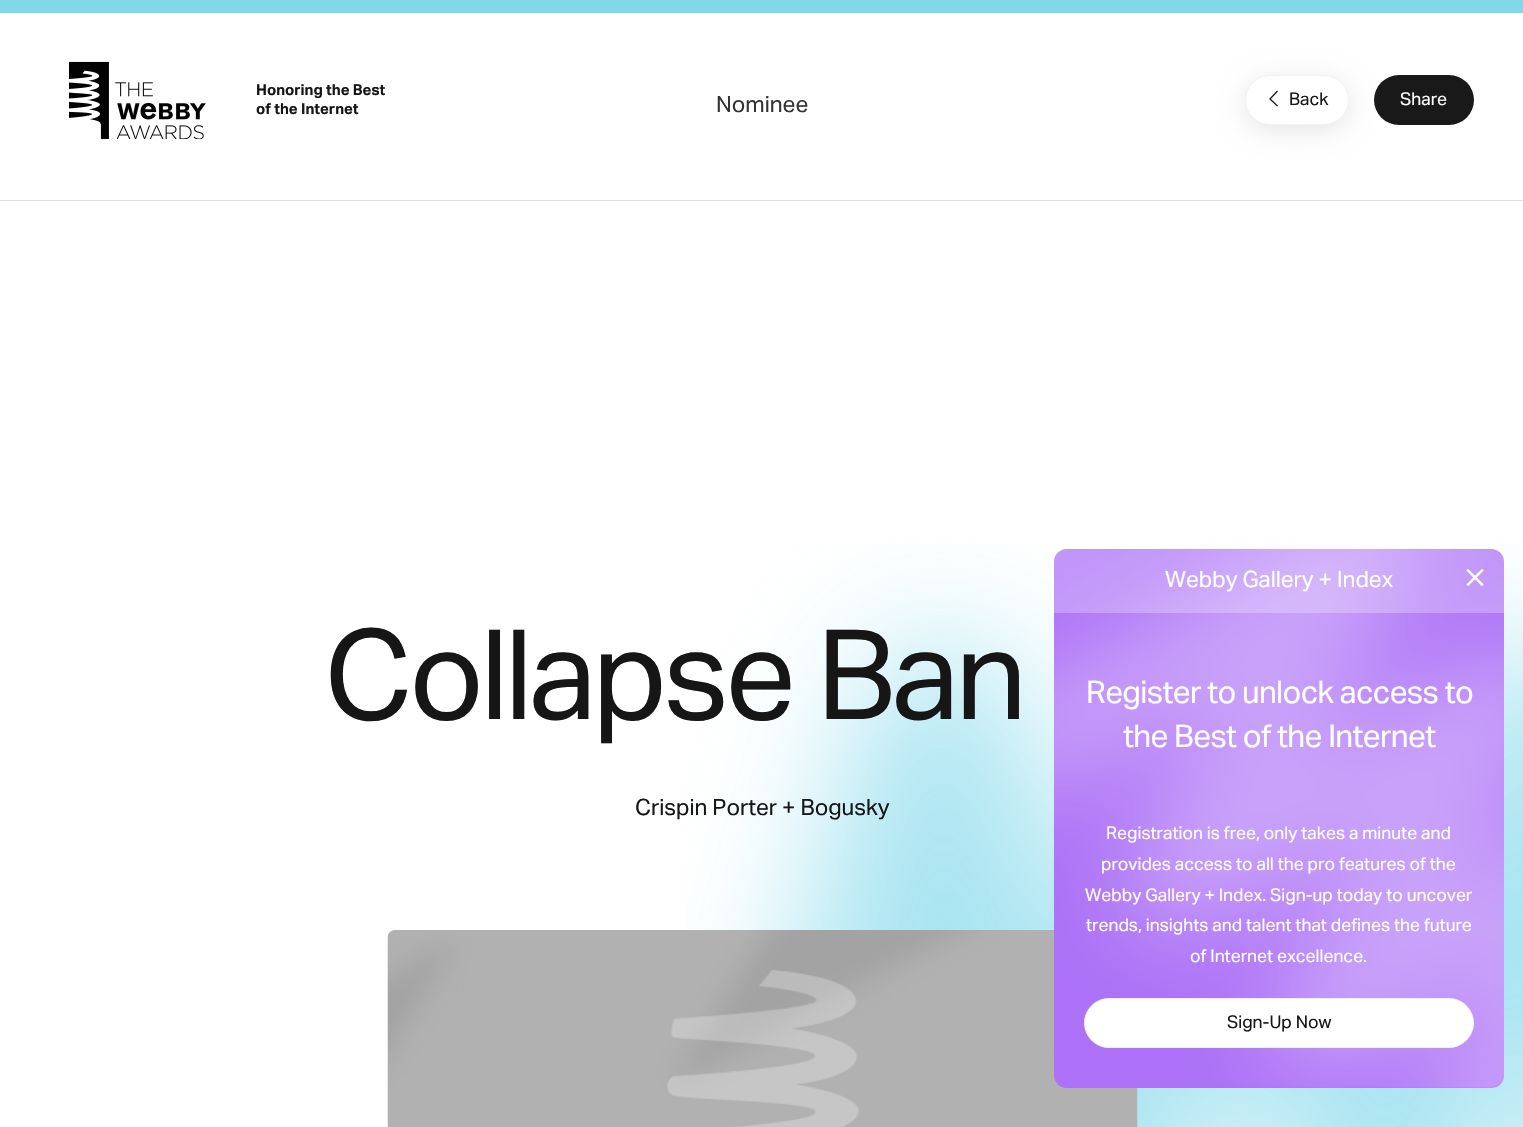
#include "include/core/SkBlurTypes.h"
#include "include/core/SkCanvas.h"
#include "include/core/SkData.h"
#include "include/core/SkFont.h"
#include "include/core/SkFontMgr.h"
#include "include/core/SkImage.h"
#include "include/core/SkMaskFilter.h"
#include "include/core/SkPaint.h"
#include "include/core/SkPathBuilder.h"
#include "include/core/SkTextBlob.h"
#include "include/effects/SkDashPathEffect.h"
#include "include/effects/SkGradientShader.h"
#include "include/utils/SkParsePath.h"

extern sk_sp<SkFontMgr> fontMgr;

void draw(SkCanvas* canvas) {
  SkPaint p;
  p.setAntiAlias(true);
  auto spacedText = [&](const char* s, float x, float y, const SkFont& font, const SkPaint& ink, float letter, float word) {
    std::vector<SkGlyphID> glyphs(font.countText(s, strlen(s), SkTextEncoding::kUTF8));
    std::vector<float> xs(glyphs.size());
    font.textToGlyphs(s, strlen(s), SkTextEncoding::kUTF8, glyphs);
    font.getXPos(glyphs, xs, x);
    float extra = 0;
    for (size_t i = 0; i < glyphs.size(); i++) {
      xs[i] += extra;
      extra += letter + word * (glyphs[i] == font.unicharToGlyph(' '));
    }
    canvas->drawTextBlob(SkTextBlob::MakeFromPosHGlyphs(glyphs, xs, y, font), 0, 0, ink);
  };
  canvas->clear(SK_ColorWHITE);
  p.setColor(SkColorSetRGB(130, 216, 235));
  canvas->drawRect(SkRect::MakeLTRB(0, 0, 1523, 13), p);
  p.setColor(SkColorSetRGB(224, 224, 224));
  canvas->drawRect(SkRect::MakeLTRB(0, 200, 1523, 201), p);
  canvas->drawImageRect(SkImages::DeferredFromEncodedData(SkData::MakeFromFileName("images/1.png")), SkRect::MakeLTRB(69, 61, 206, 139), SkSamplingOptions());
  p.setColor(SkColorSetARGB(26, 0, 0, 0));
  p.setMaskFilter(SkMaskFilter::MakeBlur(kNormal_SkBlurStyle, 12.5f));
  canvas->drawRoundRect(SkRect::MakeLTRB(1245, 80, 1349, 130), 25, 25, p);
  p.setMaskFilter(nullptr);
  p.setColor(SK_ColorWHITE);
  canvas->drawRoundRect(SkRect::MakeLTRB(1245.5f, 75.5f, 1348.5f, 124.5f), 24.5f, 24.5f, p);
  p.setStyle(SkPaint::kStroke_Style);
  p.setStrokeWidth(1);
  p.setColor(SkColorSetRGB(242, 242, 242));
  canvas->drawRoundRect(SkRect::MakeLTRB(1245.5f, 75.5f, 1348.5f, 124.5f), 24.5f, 24.5f, p);
  p.setStrokeWidth(1.3f);
  p.setColor(SkColorSetRGB(25, 25, 25));
  canvas->drawPath(SkPathBuilder().moveTo(1277.5f, 106).lineTo(1270, 99).lineTo(1277.5f, 91).detach(), p);
  p.setStyle(SkPaint::kFill_Style);
  canvas->drawRoundRect(SkRect::MakeLTRB(1374, 75, 1474, 125), 25, 25, p);
  canvas->drawImageRect(SkImages::DeferredFromEncodedData(SkData::MakeFromFileName("images/3.png")), SkRect::MakeLTRB(685, 543, 1523, 1127), SkSamplingOptions());
  canvas->drawImageRect(SkImages::DeferredFromEncodedData(SkData::MakeFromFileName("images/2.png")), SkRect::MakeLTRB(387, 930, 1138, 1127), SkSamplingOptions());
  p.setColor(SkColorSetRGB(173, 114, 247));
  canvas->drawRoundRect(SkRect::MakeLTRB(1054, 549, 1504, 1088), 13, 13, p);
  canvas->drawImageRect(SkImages::DeferredFromEncodedData(SkData::MakeFromFileName("images/4.png")), SkRect::MakeLTRB(1054, 549, 1504, 1088), SkSamplingOptions());
  p.setColor(SkColorSetARGB(64, 255, 255, 255));
  canvas->drawPath(SkPathBuilder().moveTo(1067, 549).lineTo(1491, 549).cubicTo(1498, 549, 1504, 555, 1504, 562).lineTo(1504, 613).lineTo(1054, 613).lineTo(1054, 562).cubicTo(1054, 555, 1060, 549, 1067, 549).close().detach(), p);
  canvas->drawImageRect(SkImages::DeferredFromEncodedData(SkData::MakeFromFileName("images/5.png")), SkRect::MakeLTRB(1466, 569, 1484, 586), SkSamplingOptions());
  p.setColor(SK_ColorWHITE);
  canvas->drawRoundRect(SkRect::MakeLTRB(1084.5f, 998.5f, 1473.5f, 1047.5f), 24.5f, 24.5f, p);
  p.setStyle(SkPaint::kStroke_Style);
  p.setStrokeWidth(1);
  p.setColor(SkColorSetRGB(242, 242, 242));
  canvas->drawRoundRect(SkRect::MakeLTRB(1084.5f, 998.5f, 1473.5f, 1047.5f), 24.5f, 24.5f, p);
  SkFont font1(fontMgr->matchFamilyStyle("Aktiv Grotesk", SkFontStyle::Bold()), 15);
  font1.setSubpixel(true);
  p.setStyle(SkPaint::kFill_Style);
  p.setColor(SkColorSetRGB(22, 22, 22));
  canvas->drawString("Honoring the Best", 256, 95, font1, p);
  canvas->drawString("of the Internet", 256, 114, font1, p);
  SkFont font2(fontMgr->matchFamilyStyle("Aktiv Grotesk", SkFontStyle::Normal()), 22.5f);
  font2.setSubpixel(true);
  p.setColor(SkColorSetRGB(51, 51, 51));
  canvas->drawString("Nominee", 716, 112, font2, p);
  SkFont font3(fontMgr->matchFamilyStyle("Aktiv Grotesk", SkFontStyle::Normal()), 17.5f);
  font3.setSubpixel(true);
  p.setColor(SkColorSetRGB(22, 22, 22));
  canvas->drawString("Back", 1289, 105, font3, p);
  p.setColor(SK_ColorWHITE);
  canvas->drawString("Share", 1400, 105, font3, p);
  SkFont font4(fontMgr->matchFamilyStyle("Aktiv Grotesk", SkFontStyle::Normal()), 125);
  font4.setSubpixel(true);
  p.setColor(SkColorSetRGB(22, 22, 22));
  spacedText("Collapse Ban", 324, 719, font4, p, -3.75f, 0);
  canvas->drawString("Crispin Porter + Bogusky", 635, 815, font2, p);
  p.setColor(SK_ColorWHITE);
  canvas->drawString("Webby Gallery + Index", 1165, 587, font2, p);
  SkFont font5(fontMgr->matchFamilyStyle("Aktiv Grotesk", SkFontStyle::Normal()), 31.25f);
  font5.setSubpixel(true);
  spacedText("Register to unlock access to", 1086, 703, font5, p, -0.6f, 0);
  spacedText("the Best of the Internet", 1123, 747, font5, p, -0.6f, 0);
  canvas->drawString("Registration is free, only takes a minute and", 1106, 839, font3, p);
  canvas->drawString("provides access to all the pro features of the", 1101, 870, font3, p);
  canvas->drawString("Webby Gallery + Index. Sign-up today to uncover", 1085, 901, font3, p);
  canvas->drawString("trends, insights and talent that defines the future", 1086, 931, font3, p);
  canvas->drawString("of Internet excellence.", 1190, 962, font3, p);
  p.setColor(SkColorSetRGB(22, 22, 22));
  canvas->drawString("Sign-Up Now", 1227, 1028, font3, p);
}
